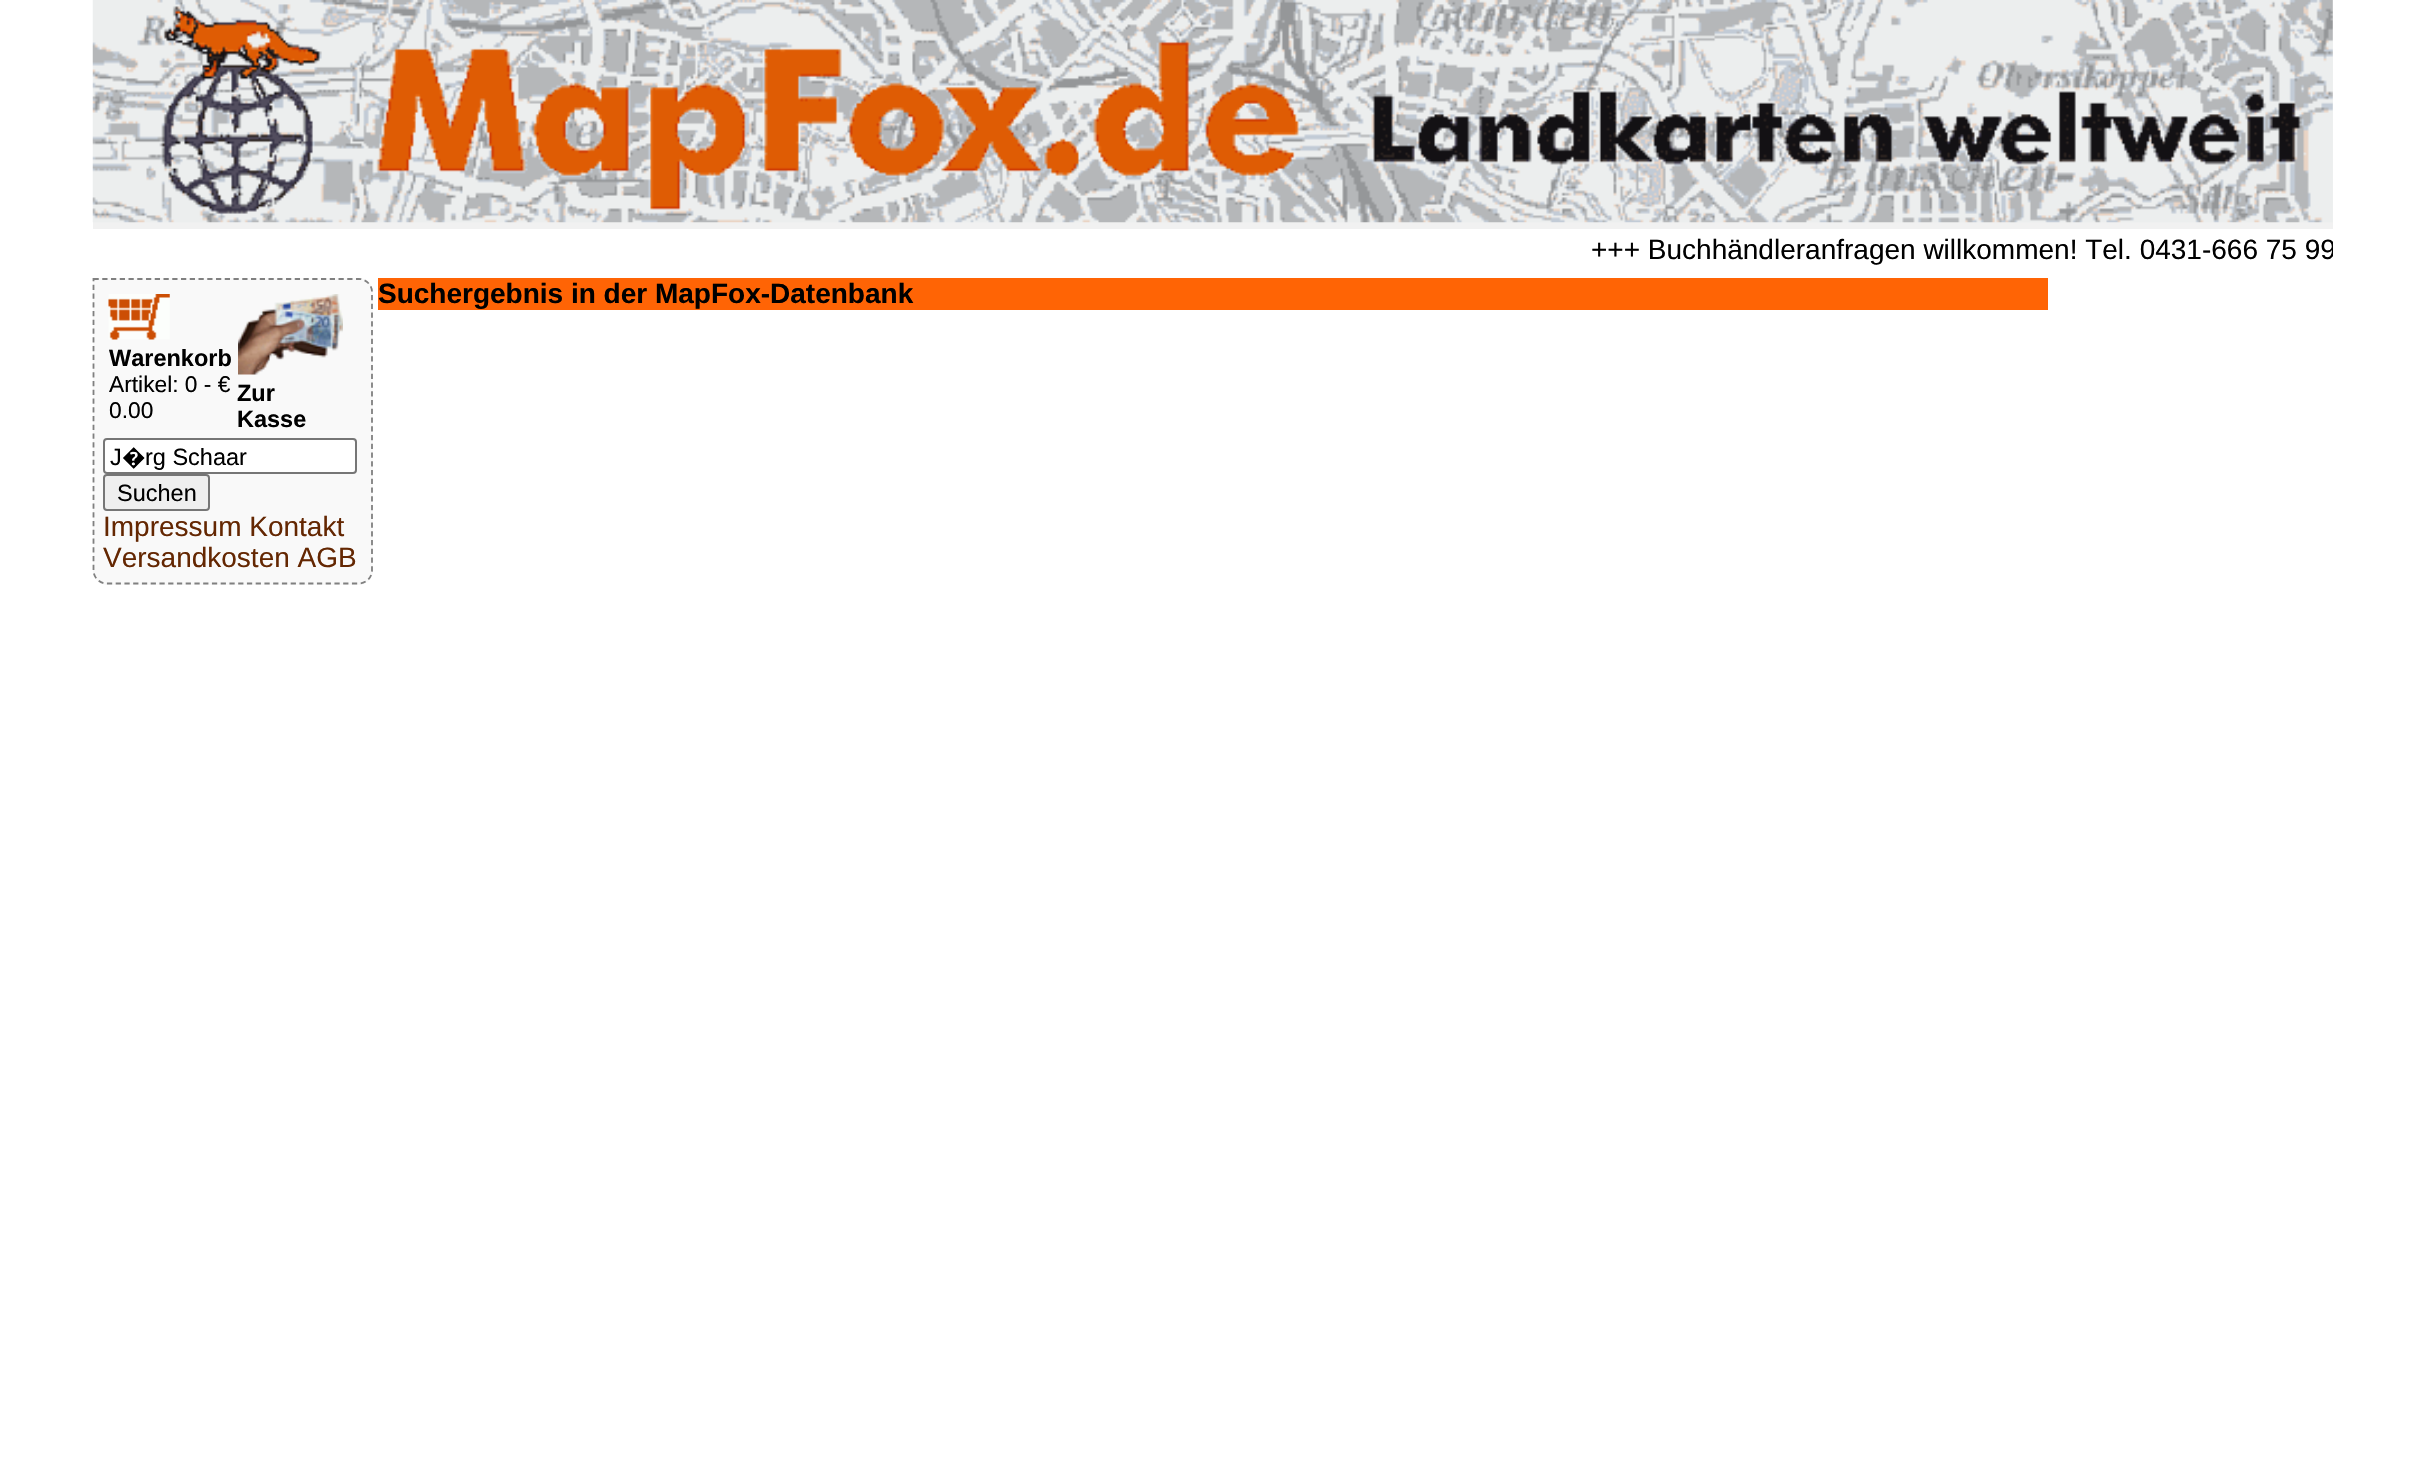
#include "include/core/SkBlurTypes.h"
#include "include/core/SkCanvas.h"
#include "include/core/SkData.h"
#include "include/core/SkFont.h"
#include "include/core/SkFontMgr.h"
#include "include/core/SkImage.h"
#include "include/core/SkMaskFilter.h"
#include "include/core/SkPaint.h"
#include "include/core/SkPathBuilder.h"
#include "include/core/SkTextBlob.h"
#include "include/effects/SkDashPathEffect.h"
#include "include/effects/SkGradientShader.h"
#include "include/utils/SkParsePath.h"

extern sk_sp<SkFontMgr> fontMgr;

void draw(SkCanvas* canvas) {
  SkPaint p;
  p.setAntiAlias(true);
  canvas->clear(SK_ColorWHITE);
  p.setColor(SkColorSetRGB(241, 241, 241));
  canvas->drawRect(SkRect::MakeLTRB(93, 0, 2333, 229), p);
  canvas->drawImageRect(SkImages::DeferredFromEncodedData(SkData::MakeFromFileName("images/1.png")), SkRect::MakeLTRB(92, 0, 2333, 223), SkSamplingOptions());
  p.setColor(SkColorSetRGB(255, 100, 5));
  canvas->drawRect(SkRect::MakeLTRB(378, 278, 2048, 310), p);
  p.setColor(SkColorSetRGB(249, 249, 249));
  canvas->drawPath(SkPathBuilder().moveTo(93, 278).lineTo(359, 278).cubicTo(366.5f, 278, 373, 284.5f, 373, 292).lineTo(373, 571).cubicTo(373, 578.5f, 366.5f, 585, 359, 585).lineTo(107, 585).cubicTo(99.5f, 585, 93, 578.5f, 93, 571).close().detach(), p);
  p.setStyle(SkPaint::kStroke_Style);
  p.setStrokeWidth(1.8f);
  p.setColor(SkColorSetRGB(128, 128, 128));
  p.setPathEffect(SkDashPathEffect::Make({{5.25f, 3.5f}}, 0));
  canvas->drawPath(SkPathBuilder().moveTo(93.5f, 279).lineTo(359, 279).cubicTo(366, 279, 372, 285, 372, 292).lineTo(372, 570.5f).cubicTo(372, 577.5f, 366, 583.5f, 359, 583.5f).lineTo(107, 583.5f).cubicTo(99.5f, 583.5f, 93.5f, 577.5f, 93.5f, 570.5f).close().detach(), p);
  p.setPathEffect(nullptr);
  canvas->drawImageRect(SkImages::DeferredFromEncodedData(SkData::MakeFromFileName("images/2.png")), SkRect::MakeLTRB(108, 294, 170, 340), SkSamplingOptions());
  canvas->drawImageRect(SkImages::DeferredFromEncodedData(SkData::MakeFromFileName("images/3.png")), SkRect::MakeLTRB(238, 294, 343, 375), SkSamplingOptions());
  p.setStyle(SkPaint::kFill_Style);
  p.setColor(SK_ColorWHITE);
  canvas->drawRoundRect(SkRect::MakeLTRB(104, 439, 356, 473), 3, 3, p);
  p.setStyle(SkPaint::kStroke_Style);
  p.setStrokeWidth(2);
  p.setColor(SkColorSetRGB(118, 118, 118));
  canvas->drawRoundRect(SkRect::MakeLTRB(104, 439, 356, 473), 3, 3, p);
  p.setStyle(SkPaint::kFill_Style);
  p.setColor(SkColorSetRGB(239, 239, 239));
  canvas->drawRoundRect(SkRect::MakeLTRB(104, 475, 209, 510), 3, 3, p);
  p.setStyle(SkPaint::kStroke_Style);
  p.setColor(SkColorSetRGB(118, 118, 118));
  canvas->drawRoundRect(SkRect::MakeLTRB(104, 475, 209, 510), 3, 3, p);
  canvas->save();
  canvas->clipRect(SkRect::MakeLTRB(93, 235, 2333, 266));
  SkFont font1(fontMgr->matchFamilyStyle("Liberation Sans", SkFontStyle::Normal()), 28);
  font1.setSubpixel(true);
  p.setStyle(SkPaint::kFill_Style);
  p.setColor(SK_ColorBLACK);
  canvas->drawString("+++ Buchhändleranfragen willkommen! Tel. 0431-666 75 99", 1591, 259, font1, p);
  canvas->restore();
  SkFont font2(fontMgr->matchFamilyStyle("Liberation Sans", SkFontStyle::Bold()), 28);
  font2.setSubpixel(true);
  canvas->drawString("Suchergebnis in der MapFox-Datenbank", 378, 303, font2, p);
  SkFont font3(fontMgr->matchFamilyStyle("Liberation Sans", SkFontStyle::Bold()), 23.5f);
  font3.setSubpixel(true);
  canvas->drawString("Warenkorb", 109, 366, font3, p);
  SkFont font4(fontMgr->matchFamilyStyle("Liberation Sans", SkFontStyle::Normal()), 22.75f);
  font4.setSubpixel(true);
  canvas->drawString("Artikel: 0 - €", 109, 392, font4, p);
  canvas->drawString("0.00", 109, 418, font4, p);
  canvas->drawString("Zur", 237, 401, font3, p);
  canvas->drawString("Kasse", 237, 427, font3, p);
  SkFont font5(fontMgr->matchFamilyStyle("Liberation Sans", SkFontStyle::Normal()), 23.5f);
  font5.setSubpixel(true);
  canvas->drawString("J", 110, 465, font5, p);
  SkFont font6(fontMgr->matchFamilyStyle("Noto Sans", SkFontStyle::Normal()), 23.5f);
  font6.setSubpixel(true);
  canvas->drawString("�", 122, 465, font6, p);
  canvas->drawString("rg Schaar", 145, 465, font5, p);
  canvas->drawString("Suchen", 117, 501, font5, p);
  p.setColor(SkColorSetRGB(100, 39, 2));
  canvas->drawString("Impressum Kontakt", 103, 536, font1, p);
  canvas->drawString("Versandkosten AGB", 103, 567, font1, p);
}
